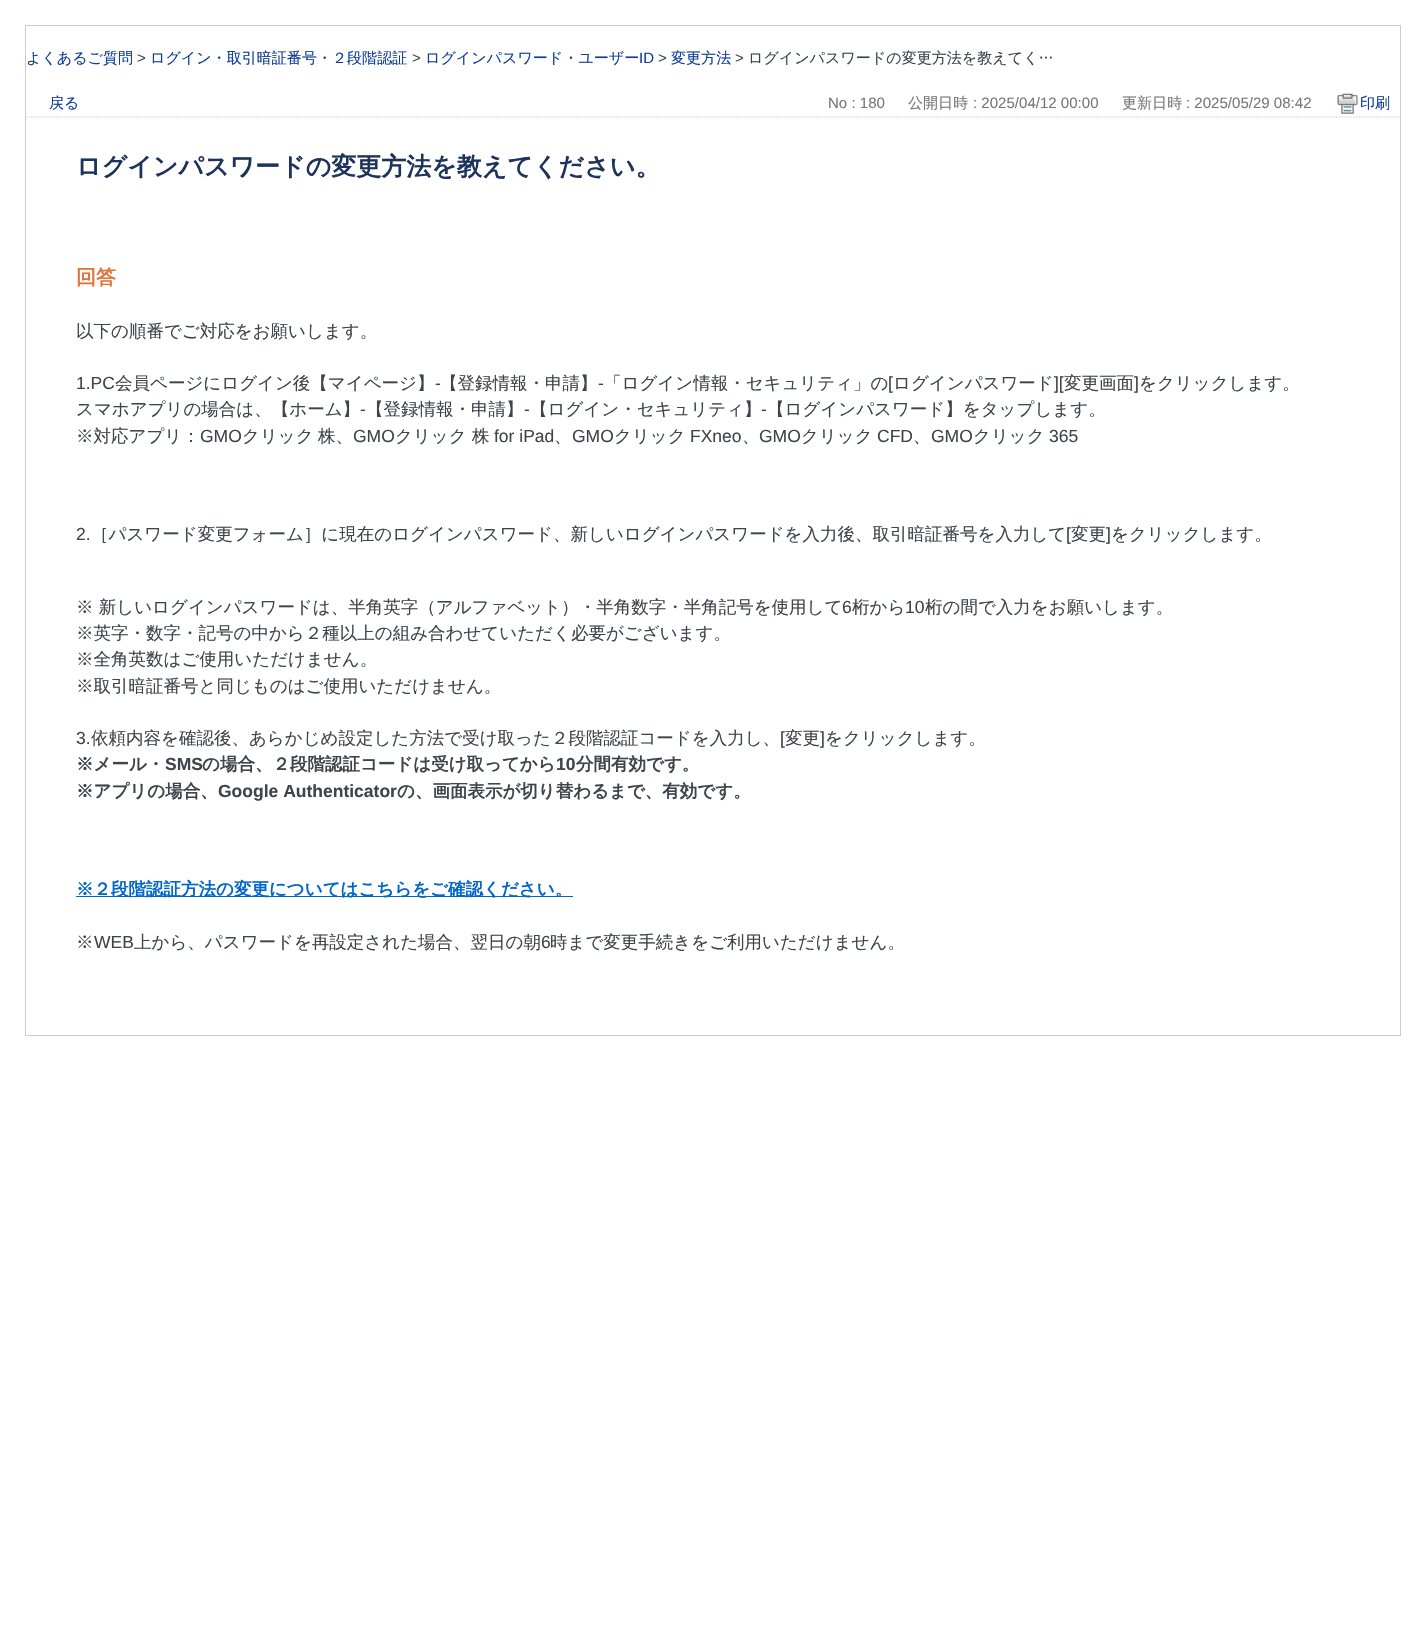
#include "include/core/SkBlurTypes.h"
#include "include/core/SkCanvas.h"
#include "include/core/SkData.h"
#include "include/core/SkFont.h"
#include "include/core/SkFontMgr.h"
#include "include/core/SkImage.h"
#include "include/core/SkMaskFilter.h"
#include "include/core/SkPaint.h"
#include "include/core/SkPathBuilder.h"
#include "include/core/SkTextBlob.h"
#include "include/effects/SkDashPathEffect.h"
#include "include/effects/SkGradientShader.h"
#include "include/utils/SkParsePath.h"

extern sk_sp<SkFontMgr> fontMgr;

void draw(SkCanvas* canvas) {
  SkPaint p;
  p.setAntiAlias(true);
  canvas->clear(SK_ColorWHITE);
  p.setStyle(SkPaint::kStroke_Style);
  p.setStrokeWidth(1);
  p.setColor(SkColorSetRGB(204, 204, 204));
  canvas->drawRect(SkRect::MakeLTRB(25.5f, 25.5f, 1400.5f, 1035.5f), p);
  p.setStrokeWidth(1.2f);
  p.setPathEffect(SkDashPathEffect::Make({{1.25f, 1.25f}}, 0));
  canvas->drawPath(SkPathBuilder().moveTo(26, 117).lineTo(1400, 117).detach(), p);
  p.setPathEffect(nullptr);
  canvas->drawImageRect(SkImages::DeferredFromEncodedData(SkData::MakeFromFileName("images/1.png")), SkRect::MakeLTRB(1337, 93, 1358, 114), SkSamplingOptions());
  p.setStyle(SkPaint::kFill_Style);
  p.setColor(SkColorSetRGB(0, 102, 204));
  canvas->drawRect(SkRect::MakeLTRB(76, 896, 573, 897), p);
  SkFont font1(fontMgr->matchFamilyStyle("WenQuanYi Zen Hei", SkFontStyle(500, SkFontStyle::kNormal_Width, SkFontStyle::kUpright_Slant)), 15.05f);
  font1.setSubpixel(true);
  p.setColor(SkColorSetRGB(15, 61, 153));
  canvas->drawString("よくあるご質問", 26, 63, font1, p);
  SkFont font2(fontMgr->matchFamilyStyle("Liberation Sans", SkFontStyle::Normal()), 15.05f);
  font2.setSubpixel(true);
  p.setColor(SkColorSetRGB(61, 68, 76));
  canvas->drawString(">", 137, 63, font2, p);
  p.setColor(SkColorSetRGB(15, 61, 153));
  canvas->drawString("ログイン・取引暗証番号・２段階認証", 150, 63, font1, p);
  p.setColor(SkColorSetRGB(61, 68, 76));
  canvas->drawString(">", 412, 63, font2, p);
  p.setColor(SkColorSetRGB(15, 61, 153));
  canvas->drawString("ログインパスワード・ユーザー", 425, 63, font1, p);
  canvas->drawString("ID", 639, 63, font2, p);
  p.setColor(SkColorSetRGB(61, 68, 76));
  canvas->drawString(">", 658, 63, font2, p);
  p.setColor(SkColorSetRGB(15, 61, 153));
  canvas->drawString("変更方法", 671, 63, font1, p);
  p.setColor(SkColorSetRGB(61, 68, 76));
  canvas->drawString(">", 735, 63, font2, p);
  canvas->drawString("ログインパスワードの変更方法を教えてく…", 748, 63, font1, p);
  p.setColor(SkColorSetRGB(15, 61, 153));
  canvas->drawString("戻る", 49, 108, font1, p);
  p.setColor(SkColorSetRGB(119, 119, 119));
  canvas->drawString("No : 180", 828, 108, font2, p);
  canvas->drawString("公開日時", 908, 108, font1, p);
  canvas->drawString(": 2025/04/12 00:00", 973, 108, font2, p);
  canvas->drawString("更新日時", 1122, 108, font1, p);
  canvas->drawString(": 2025/05/29 08:42", 1186, 108, font2, p);
  p.setColor(SkColorSetRGB(15, 61, 153));
  canvas->drawString("印刷", 1360, 108, font1, p);
  SkFont font3(fontMgr->matchFamilyStyle("WenQuanYi Zen Hei", SkFontStyle::Bold()), 25);
  font3.setSubpixel(true);
  p.setColor(SkColorSetRGB(30, 51, 92));
  canvas->drawString("ログインパスワードの変更方法を教えてください。", 76, 175, font3, p);
  SkFont font4(fontMgr->matchFamilyStyle("WenQuanYi Zen Hei", SkFontStyle::Bold()), 20);
  font4.setSubpixel(true);
  p.setColor(SkColorSetRGB(223, 117, 56));
  canvas->drawString("回答", 76, 284, font4, p);
  SkFont font5(fontMgr->matchFamilyStyle("WenQuanYi Zen Hei", SkFontStyle(500, SkFontStyle::kNormal_Width, SkFontStyle::kUpright_Slant)), 17.5f);
  font5.setSubpixel(true);
  p.setColor(SkColorSetRGB(61, 68, 76));
  canvas->drawString("以下の順番でご対応をお願いします。", 76, 337, font5, p);
  SkFont font6(fontMgr->matchFamilyStyle("Liberation Sans", SkFontStyle::Normal()), 17.5f);
  font6.setSubpixel(true);
  canvas->drawString("1.PC", 76, 389, font6, p);
  canvas->drawString("会員ページにログイン後【マイページ】", 115, 389, font5, p);
  canvas->drawString("-", 435, 389, font6, p);
  canvas->drawString("【登録情報・申請】", 440, 389, font5, p);
  canvas->drawString("-", 598, 389, font6, p);
  canvas->drawString("「ログイン情報・セキュリティ」の", 604, 389, font5, p);
  canvas->drawString("[", 888, 389, font6, p);
  canvas->drawString("ログインパスワード", 893, 389, font5, p);
  canvas->drawString("][", 1054, 389, font6, p);
  canvas->drawString("変更画面", 1064, 389, font5, p);
  canvas->drawString("]", 1134, 389, font6, p);
  canvas->drawString("をクリックします。", 1139, 389, font5, p);
  canvas->drawString("スマホアプリの場合は、【ホーム】", 76, 415, font5, p);
  canvas->drawString("-", 360, 415, font6, p);
  canvas->drawString("【登録情報・申請】", 366, 415, font5, p);
  canvas->drawString("-", 524, 415, font6, p);
  canvas->drawString("【ログイン・セキュリティ】", 530, 415, font5, p);
  canvas->drawString("-", 761, 415, font6, p);
  canvas->drawString("【ログインパスワード】をタップします。", 767, 415, font5, p);
  canvas->drawString("※対応アプリ：", 76, 442, font5, p);
  canvas->drawString("GMO", 200, 442, font6, p);
  canvas->drawString("クリック", 242, 442, font5, p);
  canvas->drawString("株、", 318, 442, font5, p);
  canvas->drawString("GMO", 353, 442, font6, p);
  canvas->drawString("クリック", 395, 442, font5, p);
  canvas->drawString("株", 472, 442, font5, p);
  canvas->drawString("for iPad", 494, 442, font6, p);
  canvas->drawString("、", 554, 442, font5, p);
  canvas->drawString("GMO", 572, 442, font6, p);
  canvas->drawString("クリック", 614, 442, font5, p);
  canvas->drawString("FXneo", 690, 442, font6, p);
  canvas->drawString("、", 742, 442, font5, p);
  canvas->drawString("GMO", 759, 442, font6, p);
  canvas->drawString("クリック", 801, 442, font5, p);
  canvas->drawString("CFD", 877, 442, font6, p);
  canvas->drawString("、", 913, 442, font5, p);
  canvas->drawString("GMO", 931, 442, font6, p);
  canvas->drawString("クリック", 973, 442, font5, p);
  canvas->drawString("365", 1049, 442, font6, p);
  canvas->drawString("2.", 76, 540, font6, p);
  canvas->drawString("［パスワード変更フォーム］に現在のログインパスワード、新しいログインパスワードを入力後、取引暗証番号を入力して", 91, 540, font5, p);
  canvas->drawString("[", 1066, 540, font6, p);
  canvas->drawString("変更", 1071, 540, font5, p);
  canvas->drawString("]", 1106, 540, font6, p);
  canvas->drawString("をクリックします。", 1111, 540, font5, p);
  canvas->drawString("※ 新しいログインパスワードは、半角英字（アルファベット）・半角数字・半角記号を使用して", 76, 613, font5, p);
  canvas->drawString("6", 842, 613, font6, p);
  canvas->drawString("桁から", 852, 613, font5, p);
  canvas->drawString("10", 905, 613, font6, p);
  canvas->drawString("桁の間で入力をお願いします。", 925, 613, font5, p);
  canvas->drawString("※英字・数字・記号の中から２種以上の組み合わせていただく必要がございます。", 76, 639, font5, p);
  canvas->drawString("※全角英数はご使用いただけません。", 76, 665, font5, p);
  canvas->drawString("※取引暗証番号と同じものはご使用いただけません。", 76, 692, font5, p);
  canvas->drawString("3.", 76, 744, font6, p);
  canvas->drawString("依頼内容を確認後、あらかじめ設定した方法で受け取った２段階認証コードを入力し、", 91, 744, font5, p);
  canvas->drawString("[", 780, 744, font6, p);
  canvas->drawString("変更", 785, 744, font5, p);
  canvas->drawString("]", 820, 744, font6, p);
  canvas->drawString("をクリックします。", 825, 744, font5, p);
  SkFont font7(fontMgr->matchFamilyStyle("WenQuanYi Zen Hei", SkFontStyle::Bold()), 17.5f);
  font7.setSubpixel(true);
  canvas->drawString("※メール・", 76, 770, font7, p);
  SkFont font8(fontMgr->matchFamilyStyle("Liberation Sans", SkFontStyle::Bold()), 17.5f);
  font8.setSubpixel(true);
  canvas->drawString("SMS", 165, 770, font8, p);
  canvas->drawString("の場合、２段階認証コードは受け取ってから", 202, 770, font7, p);
  canvas->drawString("10", 556, 770, font8, p);
  canvas->drawString("分間有効です。", 576, 770, font7, p);
  canvas->drawString("※アプリの場合、", 76, 797, font7, p);
  canvas->drawString("Google Authenticator", 218, 797, font8, p);
  canvas->drawString("の、画面表示が切り替わるまで、有効です。", 397, 797, font7, p);
  p.setColor(SkColorSetRGB(0, 102, 204));
  canvas->drawString("※２段階認証方法の変更についてはこちらをご確認ください。", 76, 895, font7, p);
  p.setColor(SkColorSetRGB(61, 68, 76));
  canvas->drawString("※", 76, 948, font5, p);
  canvas->drawString("WEB", 94, 948, font6, p);
  canvas->drawString("上から、パスワードを再設定された場合、翌日の朝", 134, 948, font5, p);
  canvas->drawString("6", 541, 948, font6, p);
  canvas->drawString("時まで変更手続きをご利用いただけません。", 550, 948, font5, p);
}
